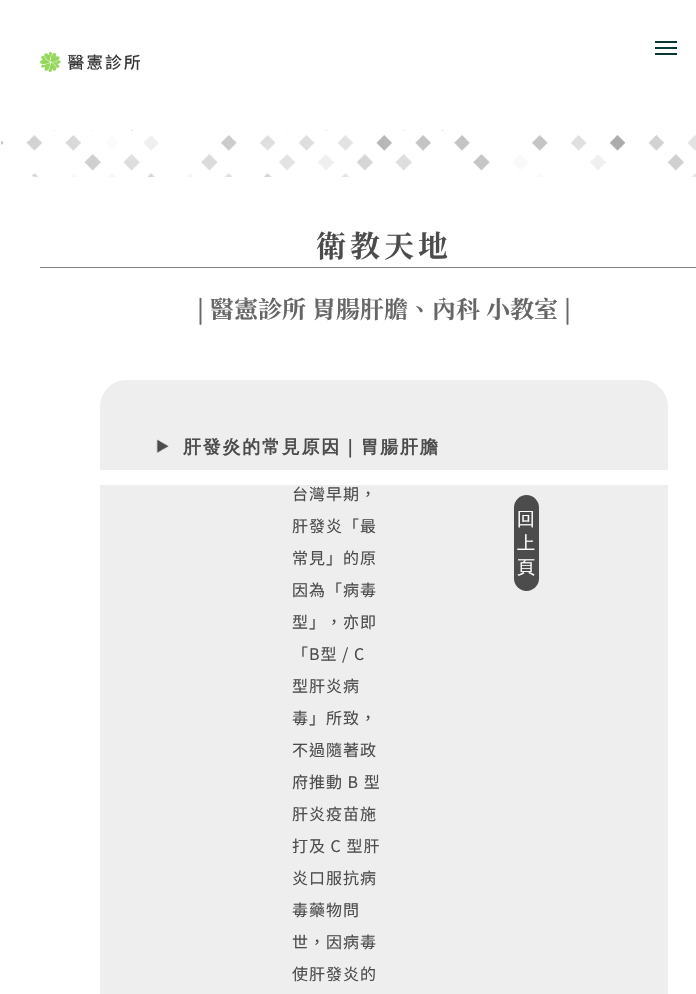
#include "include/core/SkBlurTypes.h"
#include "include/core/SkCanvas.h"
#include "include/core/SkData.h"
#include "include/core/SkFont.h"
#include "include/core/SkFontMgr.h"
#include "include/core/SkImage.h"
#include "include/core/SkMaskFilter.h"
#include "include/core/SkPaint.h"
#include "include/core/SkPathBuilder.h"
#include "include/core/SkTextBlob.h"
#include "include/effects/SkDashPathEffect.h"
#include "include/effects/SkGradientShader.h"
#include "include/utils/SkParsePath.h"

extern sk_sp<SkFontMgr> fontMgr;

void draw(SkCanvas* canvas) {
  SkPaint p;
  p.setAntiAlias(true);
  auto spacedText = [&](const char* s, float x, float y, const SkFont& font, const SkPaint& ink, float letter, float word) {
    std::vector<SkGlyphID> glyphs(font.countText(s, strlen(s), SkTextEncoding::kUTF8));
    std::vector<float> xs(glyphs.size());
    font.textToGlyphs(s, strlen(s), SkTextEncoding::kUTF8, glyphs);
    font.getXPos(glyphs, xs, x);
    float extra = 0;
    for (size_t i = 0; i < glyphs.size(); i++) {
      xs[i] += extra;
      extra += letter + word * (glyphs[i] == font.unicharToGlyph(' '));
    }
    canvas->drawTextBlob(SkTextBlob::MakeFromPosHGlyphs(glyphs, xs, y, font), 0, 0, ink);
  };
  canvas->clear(SK_ColorWHITE);
  p.setColor(SkColorSetRGB(7, 56, 49));
  canvas->drawRect(SkRect::MakeLTRB(655, 41, 677, 43), p);
  canvas->drawRect(SkRect::MakeLTRB(655, 47, 677, 49), p);
  canvas->drawRect(SkRect::MakeLTRB(655, 53, 677, 55), p);
  canvas->drawImageRect(SkImages::DeferredFromEncodedData(SkData::MakeFromFileName("images/1.png")), SkRect::MakeLTRB(40, 51, 140, 72), SkSamplingOptions());
  canvas->drawImageRect(SkImages::DeferredFromEncodedData(SkData::MakeFromFileName("images/2.png")), SkRect::MakeLTRB(1, 130, 696, 177), SkSamplingOptions());
  p.setColor(SkColorSetRGB(128, 128, 128));
  canvas->drawRect(SkRect::MakeLTRB(40, 267, 696, 268), p);
  p.setColor(SkColorSetRGB(238, 238, 238));
  canvas->drawPath(SkPathBuilder().moveTo(127, 380).lineTo(641, 380).cubicTo(656, 380, 668, 392, 668, 407).lineTo(668, 470).lineTo(100, 470).lineTo(100, 407).cubicTo(100, 392, 112, 380, 127, 380).close().detach(), p);
  canvas->drawImageRect(SkImages::DeferredFromEncodedData(SkData::MakeFromFileName("images/3.png")), SkRect::MakeLTRB(156, 439, 169, 453), SkSamplingOptions());
  canvas->drawRect(SkRect::MakeLTRB(100, 485, 668, 994), p);
  p.setColor(SkColorSetRGB(76, 76, 76));
  canvas->drawRoundRect(SkRect::MakeLTRB(514, 495, 539, 591), 12.5f, 12.5f, p);
  SkFont font1(fontMgr->matchFamilyStyle("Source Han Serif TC", SkFontStyle::Bold()), 30);
  font1.setSubpixel(true);
  spacedText("衛教天地", 316, 257, font1, p, 4, 0);
  SkFont font2(fontMgr->matchFamilyStyle("Source Han Serif TC", SkFontStyle::Bold()), 24);
  font2.setSubpixel(true);
  p.setColor(SkColorSetRGB(102, 102, 102));
  canvas->drawString("| 醫憲診所 胃腸肝膽、內科 小教室 |", 197, 318, font2, p);
  SkFont font3(fontMgr->matchFamilyStyle("WenQuanYi Zen Hei", SkFontStyle::Bold()), 18);
  font3.setSubpixel(true);
  p.setColor(SkColorSetRGB(76, 76, 76));
  spacedText("肝發炎的常見原因｜胃腸肝膽", 183, 453, font3, p, 1.75f, 0);
  SkFont font4(fontMgr->matchFamilyStyle("Noto Sans TC", SkFontStyle::Normal()), 16);
  font4.setSubpixel(true);
  spacedText("台灣早期，", 292, 500, font4, p, 1, 0);
  spacedText("肝發炎「最", 292, 532, font4, p, 1, 0);
  spacedText("常見」的原", 292, 564, font4, p, 1, 0);
  spacedText("因為「病毒", 292, 596, font4, p, 1, 0);
  spacedText("型」，亦即", 292, 628, font4, p, 1, 0);
  spacedText("「B型 / C", 292, 660, font4, p, 1, 0);
  spacedText("型肝炎病", 292, 692, font4, p, 1, 0);
  spacedText("毒」所致，", 292, 724, font4, p, 1, 0);
  spacedText("不過隨著政", 292, 756, font4, p, 1, 0);
  spacedText("府推動 B 型", 292, 788, font4, p, 1, 0);
  spacedText("肝炎疫苗施", 292, 820, font4, p, 1, 0);
  spacedText("打及 C 型肝", 292, 852, font4, p, 1, 0);
  spacedText("炎口服抗病", 292, 884, font4, p, 1, 0);
  spacedText("毒藥物問", 292, 916, font4, p, 1, 0);
  spacedText("世，因病毒", 292, 948, font4, p, 1, 0);
  spacedText("使肝發炎的", 292, 980, font4, p, 1, 0);
  SkFont font5(fontMgr->matchFamilyStyle("WenQuanYi Zen Hei", SkFontStyle(500, SkFontStyle::kNormal_Width, SkFontStyle::kUpright_Slant)), 18);
  font5.setSubpixel(true);
  p.setColor(SK_ColorWHITE);
  canvas->drawString("回", 517, 525, font5, p);
  canvas->drawString("上", 517, 549, font5, p);
  canvas->drawString("頁", 517, 573, font5, p);
}
